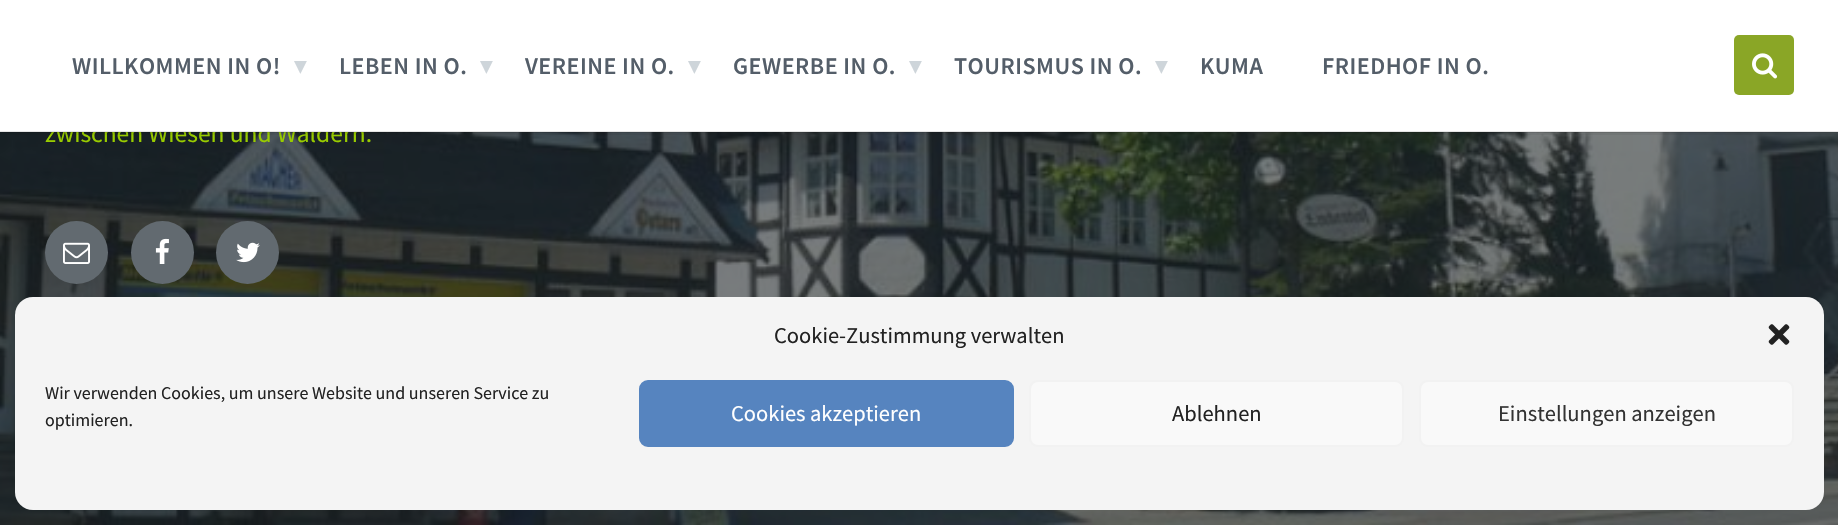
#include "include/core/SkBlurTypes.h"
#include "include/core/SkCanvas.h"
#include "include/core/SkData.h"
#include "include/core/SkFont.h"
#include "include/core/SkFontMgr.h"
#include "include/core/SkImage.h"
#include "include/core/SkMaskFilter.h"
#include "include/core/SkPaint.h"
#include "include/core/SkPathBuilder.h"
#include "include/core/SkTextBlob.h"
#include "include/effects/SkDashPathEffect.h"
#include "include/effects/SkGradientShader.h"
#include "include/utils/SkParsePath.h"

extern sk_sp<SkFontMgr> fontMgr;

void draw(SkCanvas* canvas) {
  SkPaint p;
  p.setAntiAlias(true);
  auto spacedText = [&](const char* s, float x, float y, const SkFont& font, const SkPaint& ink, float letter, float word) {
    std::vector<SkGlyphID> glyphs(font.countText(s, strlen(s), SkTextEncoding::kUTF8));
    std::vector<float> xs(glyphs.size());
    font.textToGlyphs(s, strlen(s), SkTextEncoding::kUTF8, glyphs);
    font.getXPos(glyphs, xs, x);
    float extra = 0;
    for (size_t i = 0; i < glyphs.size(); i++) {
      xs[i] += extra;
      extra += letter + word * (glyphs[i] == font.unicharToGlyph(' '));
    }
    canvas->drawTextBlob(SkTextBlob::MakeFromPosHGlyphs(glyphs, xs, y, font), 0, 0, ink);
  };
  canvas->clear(SK_ColorWHITE);
  canvas->drawImageRect(SkImages::DeferredFromEncodedData(SkData::MakeFromFileName("images/2.png")), SkRect::MakeLTRB(0, 132, 1838, 525), SkSamplingOptions());
  p.setColor(SkColorSetRGB(98, 106, 112));
  canvas->drawCircle(76.5f, 252.5f, 31.5f, p);
  canvas->drawImageRect(SkImages::DeferredFromEncodedData(SkData::MakeFromFileName("images/3.png")), SkRect::MakeLTRB(63, 242, 90, 264), SkSamplingOptions());
  canvas->drawCircle(162.5f, 252.5f, 31.5f, p);
  canvas->drawImageRect(SkImages::DeferredFromEncodedData(SkData::MakeFromFileName("images/4.png")), SkRect::MakeLTRB(155, 238, 169, 264), SkSamplingOptions());
  canvas->drawCircle(247.5f, 252.5f, 31.5f, p);
  canvas->drawImageRect(SkImages::DeferredFromEncodedData(SkData::MakeFromFileName("images/5.png")), SkRect::MakeLTRB(236, 242, 260, 263), SkSamplingOptions());
  p.setColor(SkColorSetRGB(244, 244, 244));
  canvas->drawRoundRect(SkRect::MakeLTRB(15, 297, 1824, 510), 18, 18, p);
  canvas->drawImageRect(SkImages::DeferredFromEncodedData(SkData::MakeFromFileName("images/6.png")), SkRect::MakeLTRB(1768, 324, 1790, 345), SkSamplingOptions());
  p.setColor(SkColorSetRGB(86, 132, 191));
  canvas->drawRoundRect(SkRect::MakeLTRB(640, 381, 1013, 446), 8, 8, p);
  p.setStyle(SkPaint::kStroke_Style);
  p.setStrokeWidth(2);
  canvas->drawRoundRect(SkRect::MakeLTRB(640, 381, 1013, 446), 8, 8, p);
  p.setStyle(SkPaint::kFill_Style);
  p.setColor(SkColorSetRGB(249, 249, 249));
  canvas->drawRoundRect(SkRect::MakeLTRB(1030, 381, 1403, 446), 8, 8, p);
  p.setStyle(SkPaint::kStroke_Style);
  p.setColor(SkColorSetRGB(242, 242, 242));
  canvas->drawRoundRect(SkRect::MakeLTRB(1030, 381, 1403, 446), 8, 8, p);
  p.setStyle(SkPaint::kFill_Style);
  p.setColor(SkColorSetRGB(249, 249, 249));
  canvas->drawRoundRect(SkRect::MakeLTRB(1420, 381, 1793, 446), 8, 8, p);
  p.setStyle(SkPaint::kStroke_Style);
  p.setColor(SkColorSetRGB(242, 242, 242));
  canvas->drawRoundRect(SkRect::MakeLTRB(1420, 381, 1793, 446), 8, 8, p);
  SkFont font1(fontMgr->matchFamilyStyle("Source Sans Pro", SkFontStyle::Normal()), 25.5f);
  font1.setSubpixel(true);
  p.setStyle(SkPaint::kFill_Style);
  p.setColor(SkColorSetRGB(153, 204, 0));
  canvas->drawString("zwischen Wiesen und Wäldern.", 45, 142, font1, p);
  p.setStyle(SkPaint::kStroke_Style);
  p.setStrokeWidth(3);
  p.setColor(SkColorSetARGB(13, 0, 0, 0));
  canvas->drawRect(SkRect::MakeLTRB(-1.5f, -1.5f, 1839.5f, 133.5f), p);
  p.setStyle(SkPaint::kFill_Style);
  p.setColor(SkColorSetRGB(138, 166, 38));
  canvas->drawRoundRect(SkRect::MakeLTRB(1734, 35, 1794, 95), 5, 5, p);
  canvas->drawImageRect(SkImages::DeferredFromEncodedData(SkData::MakeFromFileName("images/1.png")), SkRect::MakeLTRB(1752, 53, 1778, 79), SkSamplingOptions());
  SkFont font2(fontMgr->matchFamilyStyle("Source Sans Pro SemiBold", SkFontStyle(600, SkFontStyle::kNormal_Width, SkFontStyle::kUpright_Slant)), 24);
  font2.setSubpixel(true);
  p.setColor(SkColorSetRGB(84, 94, 105));
  spacedText("FRIEDHOF IN O.", 1322, 74, font2, p, 0.5f, 0);
  spacedText("KUMA", 1200, 74, font2, p, 0.5f, 0);
  SkFont font3(fontMgr->matchFamilyStyle("DejaVu Sans", SkFontStyle::Normal()), 25.5f);
  font3.setSubpixel(true);
  p.setColor(SkColorSetRGB(206, 213, 218));
  canvas->drawString("▾", 1155, 74, font3, p);
  p.setColor(SkColorSetRGB(84, 94, 105));
  spacedText("TOURISMUS IN O.", 954, 74, font2, p, 0.5f, 0);
  p.setColor(SkColorSetRGB(206, 213, 218));
  canvas->drawString("▾", 909, 74, font3, p);
  p.setColor(SkColorSetRGB(84, 94, 105));
  spacedText("GEWERBE IN O.", 733, 74, font2, p, 0.5f, 0);
  p.setColor(SkColorSetRGB(206, 213, 218));
  canvas->drawString("▾", 688, 74, font3, p);
  p.setColor(SkColorSetRGB(84, 94, 105));
  spacedText("VEREINE IN O.", 525, 74, font2, p, 0.5f, 0);
  p.setColor(SkColorSetRGB(206, 213, 218));
  canvas->drawString("▾", 480, 74, font3, p);
  p.setColor(SkColorSetRGB(84, 94, 105));
  spacedText("LEBEN IN O.", 339, 74, font2, p, 0.5f, 0);
  p.setColor(SkColorSetRGB(206, 213, 218));
  canvas->drawString("▾", 294, 74, font3, p);
  p.setColor(SkColorSetRGB(84, 94, 105));
  spacedText("WILLKOMMEN IN O!", 72, 74, font2, p, 0.5f, 0);
  p.setColor(SK_ColorWHITE);
  canvas->drawRect(SkRect::MakeLTRB(46, 123, 364, 132), p);
  p.setColor(SkColorSetARGB(26, 0, 0, 0));
  canvas->drawRect(SkRect::MakeLTRB(0, 131, 1838, 133), p);
  SkFont font4(fontMgr->matchFamilyStyle("Source Sans Pro", SkFontStyle::Normal()), 22.5f);
  font4.setSubpixel(true);
  p.setColor(SkColorSetRGB(34, 34, 34));
  canvas->drawString("Cookie-Zustimmung verwalten", 774, 343, font4, p);
  SkFont font5(fontMgr->matchFamilyStyle("Source Sans Pro", SkFontStyle::Normal()), 18);
  font5.setSubpixel(true);
  canvas->drawString("Wir verwenden Cookies, um unsere Website und unseren Service zu", 45, 399, font5, p);
  canvas->drawString("optimieren.", 45, 426, font5, p);
  p.setColor(SK_ColorWHITE);
  canvas->drawString("Cookies akzeptieren", 731, 421, font4, p);
  p.setColor(SkColorSetRGB(34, 34, 34));
  canvas->drawString("Ablehnen", 1172, 421, font4, p);
  p.setColor(SkColorSetRGB(51, 51, 51));
  canvas->drawString("Einstellungen anzeigen", 1498, 421, font4, p);
}
